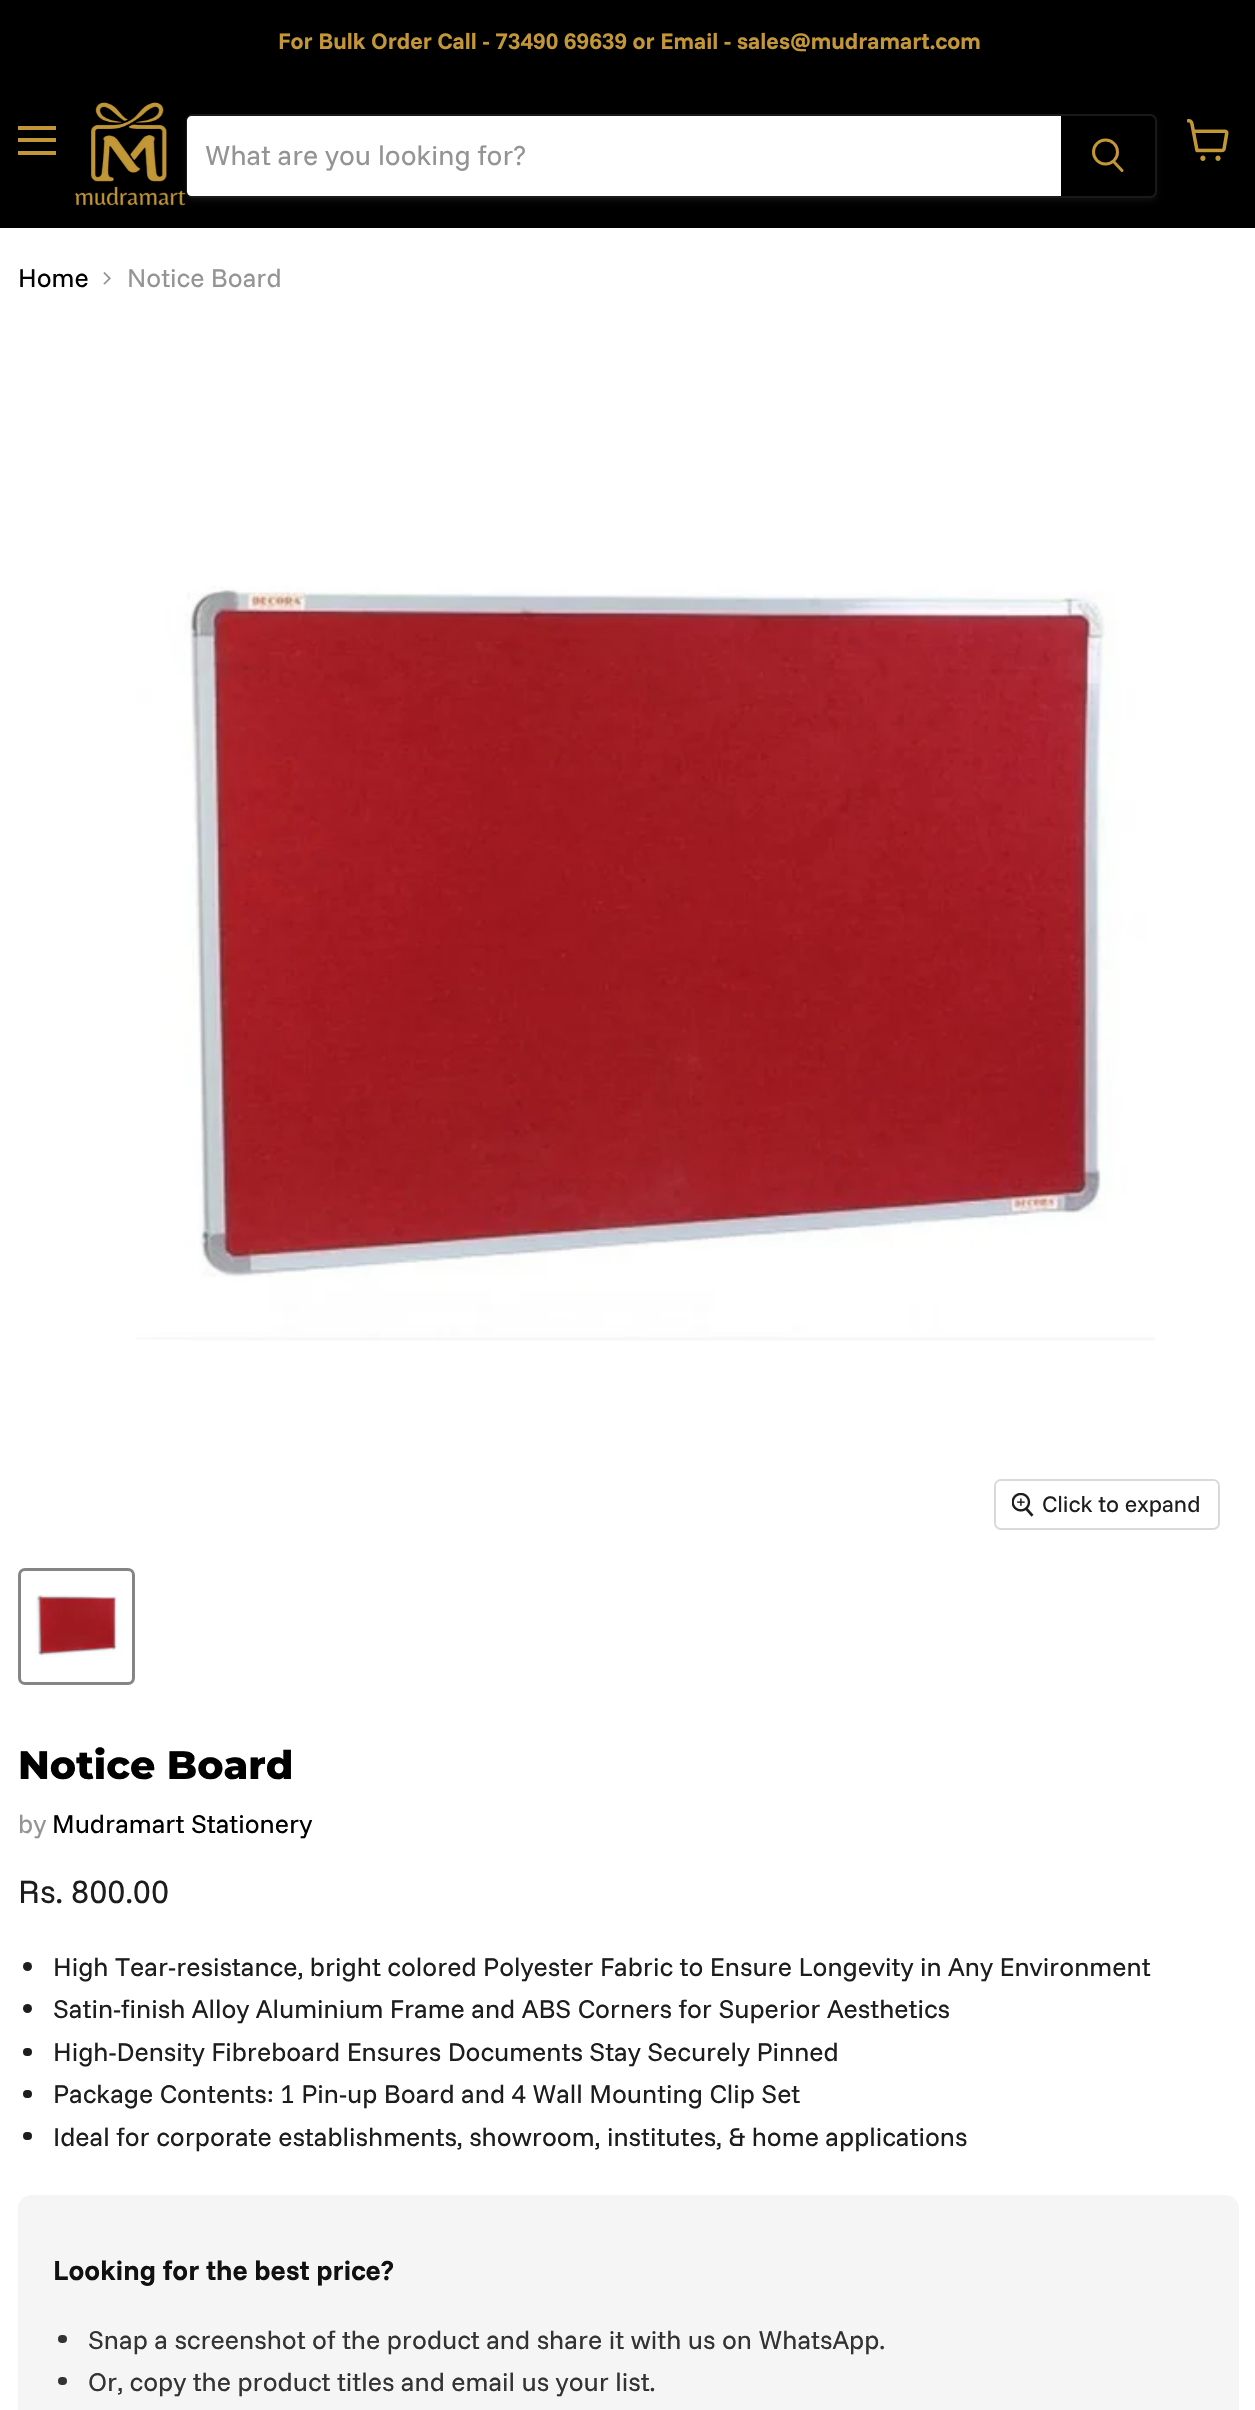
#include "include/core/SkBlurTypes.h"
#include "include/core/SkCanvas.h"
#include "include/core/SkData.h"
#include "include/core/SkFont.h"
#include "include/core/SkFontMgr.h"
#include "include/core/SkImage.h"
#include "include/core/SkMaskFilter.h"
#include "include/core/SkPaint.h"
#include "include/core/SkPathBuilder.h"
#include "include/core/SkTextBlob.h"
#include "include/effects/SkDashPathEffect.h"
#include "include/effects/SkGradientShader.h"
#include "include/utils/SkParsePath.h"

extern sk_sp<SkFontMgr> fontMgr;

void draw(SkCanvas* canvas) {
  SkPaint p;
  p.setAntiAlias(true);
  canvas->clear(SK_ColorWHITE);
  p.setColor(SK_ColorBLACK);
  canvas->drawRect(SkRect::MakeLTRB(0, 0, 1255, 228), p);
  p.setColor(SkColorSetRGB(195, 151, 55));
  canvas->drawRect(SkRect::MakeLTRB(18, 126, 56, 130), p);
  canvas->drawRect(SkRect::MakeLTRB(18, 138, 56, 142), p);
  canvas->drawRect(SkRect::MakeLTRB(18, 151, 56, 155), p);
  canvas->drawImageRect(SkImages::DeferredFromEncodedData(SkData::MakeFromFileName("images/1.png")), SkRect::MakeLTRB(1187, 119, 1229, 161), SkSamplingOptions());
  canvas->drawImageRect(SkImages::DeferredFromEncodedData(SkData::MakeFromFileName("images/2.png")), SkRect::MakeLTRB(75, 102, 186, 206), SkSamplingOptions());
  canvas->save();
  canvas->clipPath(SkPathBuilder(SkPathFillType::kEvenOdd).moveTo(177, 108).lineTo(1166, 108).lineTo(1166, 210).lineTo(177, 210).close().moveTo(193, 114).lineTo(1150, 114).cubicTo(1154, 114, 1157, 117, 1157, 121).lineTo(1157, 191).cubicTo(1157, 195, 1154, 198, 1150, 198).lineTo(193, 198).cubicTo(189, 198, 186, 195, 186, 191).lineTo(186, 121).cubicTo(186, 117, 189, 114, 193, 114).close().detach(), true);
  p.setColor(SkColorSetARGB(28, 128, 128, 128));
  p.setMaskFilter(SkMaskFilter::MakeBlur(kNormal_SkBlurStyle, 2.5f));
  canvas->drawRoundRect(SkRect::MakeLTRB(186, 117, 1157, 201), 7, 7, p);
  p.setMaskFilter(nullptr);
  canvas->restore();
  p.setStyle(SkPaint::kStroke_Style);
  p.setStrokeWidth(2);
  p.setColor(SkColorSetARGB(51, 128, 128, 128));
  canvas->drawRoundRect(SkRect::MakeLTRB(187, 115, 1156, 197), 6, 6, p);
  p.setStyle(SkPaint::kFill_Style);
  p.setColor(SK_ColorWHITE);
  canvas->drawPath(SkPathBuilder().moveTo(192, 116).lineTo(1061, 116).lineTo(1061, 196).lineTo(192, 196).cubicTo(189, 196, 187, 194, 187, 191).lineTo(187, 121).cubicTo(187, 118, 189, 116, 192, 116).close().detach(), p);
  p.setColor(SK_ColorBLACK);
  canvas->drawPath(SkPathBuilder().moveTo(1062, 117).lineTo(1150, 117).cubicTo(1152, 117, 1154, 119, 1154, 121).lineTo(1154, 191).cubicTo(1154, 193, 1152, 195, 1150, 195).lineTo(1062, 195).close().detach(), p);
  p.setStyle(SkPaint::kStroke_Style);
  canvas->drawPath(SkPathBuilder().moveTo(1062, 117).lineTo(1150, 117).cubicTo(1152, 117, 1154, 119, 1154, 121).lineTo(1154, 191).cubicTo(1154, 193, 1152, 195, 1150, 195).lineTo(1062, 195).close().detach(), p);
  p.setStrokeWidth(3);
  p.setStrokeCap(SkPaint::kRound_Cap);
  p.setColor(SkColorSetRGB(195, 151, 55));
  canvas->drawPath(SkPathBuilder().moveTo(1122, 170.5f).lineTo(1114, 162).detach(), p);
  p.setStrokeCap(SkPaint::kButt_Cap);
  canvas->drawCircle(1105.5f, 152, 12, p);
  canvas->drawImageRect(SkImages::DeferredFromEncodedData(SkData::MakeFromFileName("images/3.png")), SkRect::MakeLTRB(103, 272, 111, 285), SkSamplingOptions());
  canvas->drawImageRect(SkImages::DeferredFromEncodedData(SkData::MakeFromFileName("images/4.png")), SkRect::MakeLTRB(136, 586, 1155, 1341), SkSamplingOptions());
  p.setStrokeWidth(2);
  p.setColor(SkColorSetRGB(217, 217, 217));
  canvas->drawRoundRect(SkRect::MakeLTRB(995, 1480, 1219, 1529), 6, 6, p);
  p.setStyle(SkPaint::kFill_Style);
  p.setColor(SkColorSetARGB(230, 255, 255, 255));
  canvas->drawRoundRect(SkRect::MakeLTRB(996, 1481, 1218, 1528), 5, 5, p);
  canvas->drawImageRect(SkImages::DeferredFromEncodedData(SkData::MakeFromFileName("images/5.png")), SkRect::MakeLTRB(1012, 1493, 1034, 1517), SkSamplingOptions());
  p.setStyle(SkPaint::kStroke_Style);
  p.setStrokeWidth(3);
  p.setColor(SkColorSetRGB(133, 133, 133));
  canvas->drawRoundRect(SkRect::MakeLTRB(19.5f, 1569.5f, 133.5f, 1683.5f), 5.5f, 5.5f, p);
  canvas->drawImageRect(SkImages::DeferredFromEncodedData(SkData::MakeFromFileName("images/6.png")), SkRect::MakeLTRB(35, 1595, 124, 1657), SkSamplingOptions());
  p.setStyle(SkPaint::kFill_Style);
  p.setColor(SkColorSetRGB(29, 29, 29));
  canvas->drawCircle(27.5f, 1966.5f, 4.5f, p);
  canvas->drawCircle(27.5f, 2008.5f, 4.5f, p);
  canvas->drawRoundRect(SkRect::MakeLTRB(23, 2048, 32, 2056), 4, 4, p);
  canvas->drawRoundRect(SkRect::MakeLTRB(23, 2090, 32, 2098), 4, 4, p);
  canvas->drawRoundRect(SkRect::MakeLTRB(23, 2132, 32, 2140), 4, 4, p);
  p.setColor(SkColorSetRGB(245, 245, 245));
  canvas->drawRoundRect(SkRect::MakeLTRB(18, 2195, 1239, 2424), 14, 14, p);
  p.setColor(SkColorSetRGB(51, 51, 51));
  canvas->drawRoundRect(SkRect::MakeLTRB(58, 2335, 67, 2343), 4, 4, p);
  canvas->drawRoundRect(SkRect::MakeLTRB(58, 2377, 67, 2385), 4, 4, p);
  SkFont font1(fontMgr->matchFamilyStyle("Funnel Sans", SkFontStyle::Bold()), 23);
  font1.setSubpixel(true);
  p.setColor(SkColorSetRGB(195, 151, 55));
  canvas->drawString("For Bulk Order Call - 73490 69639 or Email - sales@mudramart.com", 278, 49, font1, p);
  SkFont font2(fontMgr->matchFamilyStyle("Funnel Sans", SkFontStyle::Normal()), 28);
  font2.setSubpixel(true);
  p.setColor(SkColorSetRGB(148, 148, 148));
  canvas->drawString("What are you looking for?", 205, 165, font2, p);
  SkFont font3(fontMgr->matchFamilyStyle("Funnel Sans", SkFontStyle::Normal()), 26.25f);
  font3.setSubpixel(true);
  p.setColor(SK_ColorBLACK);
  canvas->drawString("Home", 18, 287, font3, p);
  p.setColor(SkColorSetRGB(148, 148, 148));
  canvas->drawString("Notice Board", 127, 287, font3, p);
  SkFont font4(fontMgr->matchFamilyStyle("Funnel Sans", SkFontStyle::Normal()), 23);
  font4.setSubpixel(true);
  p.setColor(SkColorSetRGB(29, 29, 29));
  canvas->drawString("Click to expand", 1042, 1512, font4, p);
  SkFont font5(fontMgr->matchFamilyStyle("Montserrat", SkFontStyle(800, SkFontStyle::kNormal_Width, SkFontStyle::kUpright_Slant)), 39.5f);
  font5.setSubpixel(true);
  p.setColor(SK_ColorBLACK);
  canvas->drawString("Notice Board", 18, 1779, font5, p);
  p.setColor(SkColorSetRGB(148, 148, 148));
  canvas->drawString("by", 18, 1833, font3, p);
  p.setColor(SK_ColorBLACK);
  canvas->drawString("Mudramart Stationery", 52, 1833, font3, p);
  SkFont font6(fontMgr->matchFamilyStyle("Funnel Sans", SkFontStyle::Normal()), 33);
  font6.setSubpixel(true);
  p.setColor(SkColorSetRGB(29, 29, 29));
  canvas->drawString("Rs. 800.00", 18, 1903, font6, p);
  canvas->drawString("High Tear-resistance, bright colored Polyester Fabric to Ensure Longevity in Any Environment", 53, 1976, font3, p);
  canvas->drawString("Satin-finish Alloy Aluminium Frame and ABS Corners for Superior Aesthetics", 53, 2018, font3, p);
  canvas->drawString("High-Density Fibreboard Ensures Documents Stay Securely Pinned", 53, 2061, font3, p);
  canvas->drawString("Package Contents: 1 Pin-up Board and 4 Wall Mounting Clip Set", 53, 2103, font3, p);
  canvas->drawString("Ideal for corporate establishments, showroom, institutes, & home applications", 53, 2146, font3, p);
  SkFont font7(fontMgr->matchFamilyStyle("Funnel Sans", SkFontStyle::Bold()), 28);
  font7.setSubpixel(true);
  p.setColor(SkColorSetRGB(17, 17, 17));
  canvas->drawString("Looking for the best price?", 53, 2280, font7, p);
  p.setColor(SkColorSetRGB(51, 51, 51));
  canvas->drawString("Snap a screenshot of the product and share it with us on WhatsApp.", 88, 2349, font3, p);
  canvas->drawString("Or, copy the product titles and email us your list.", 88, 2391, font3, p);
}
